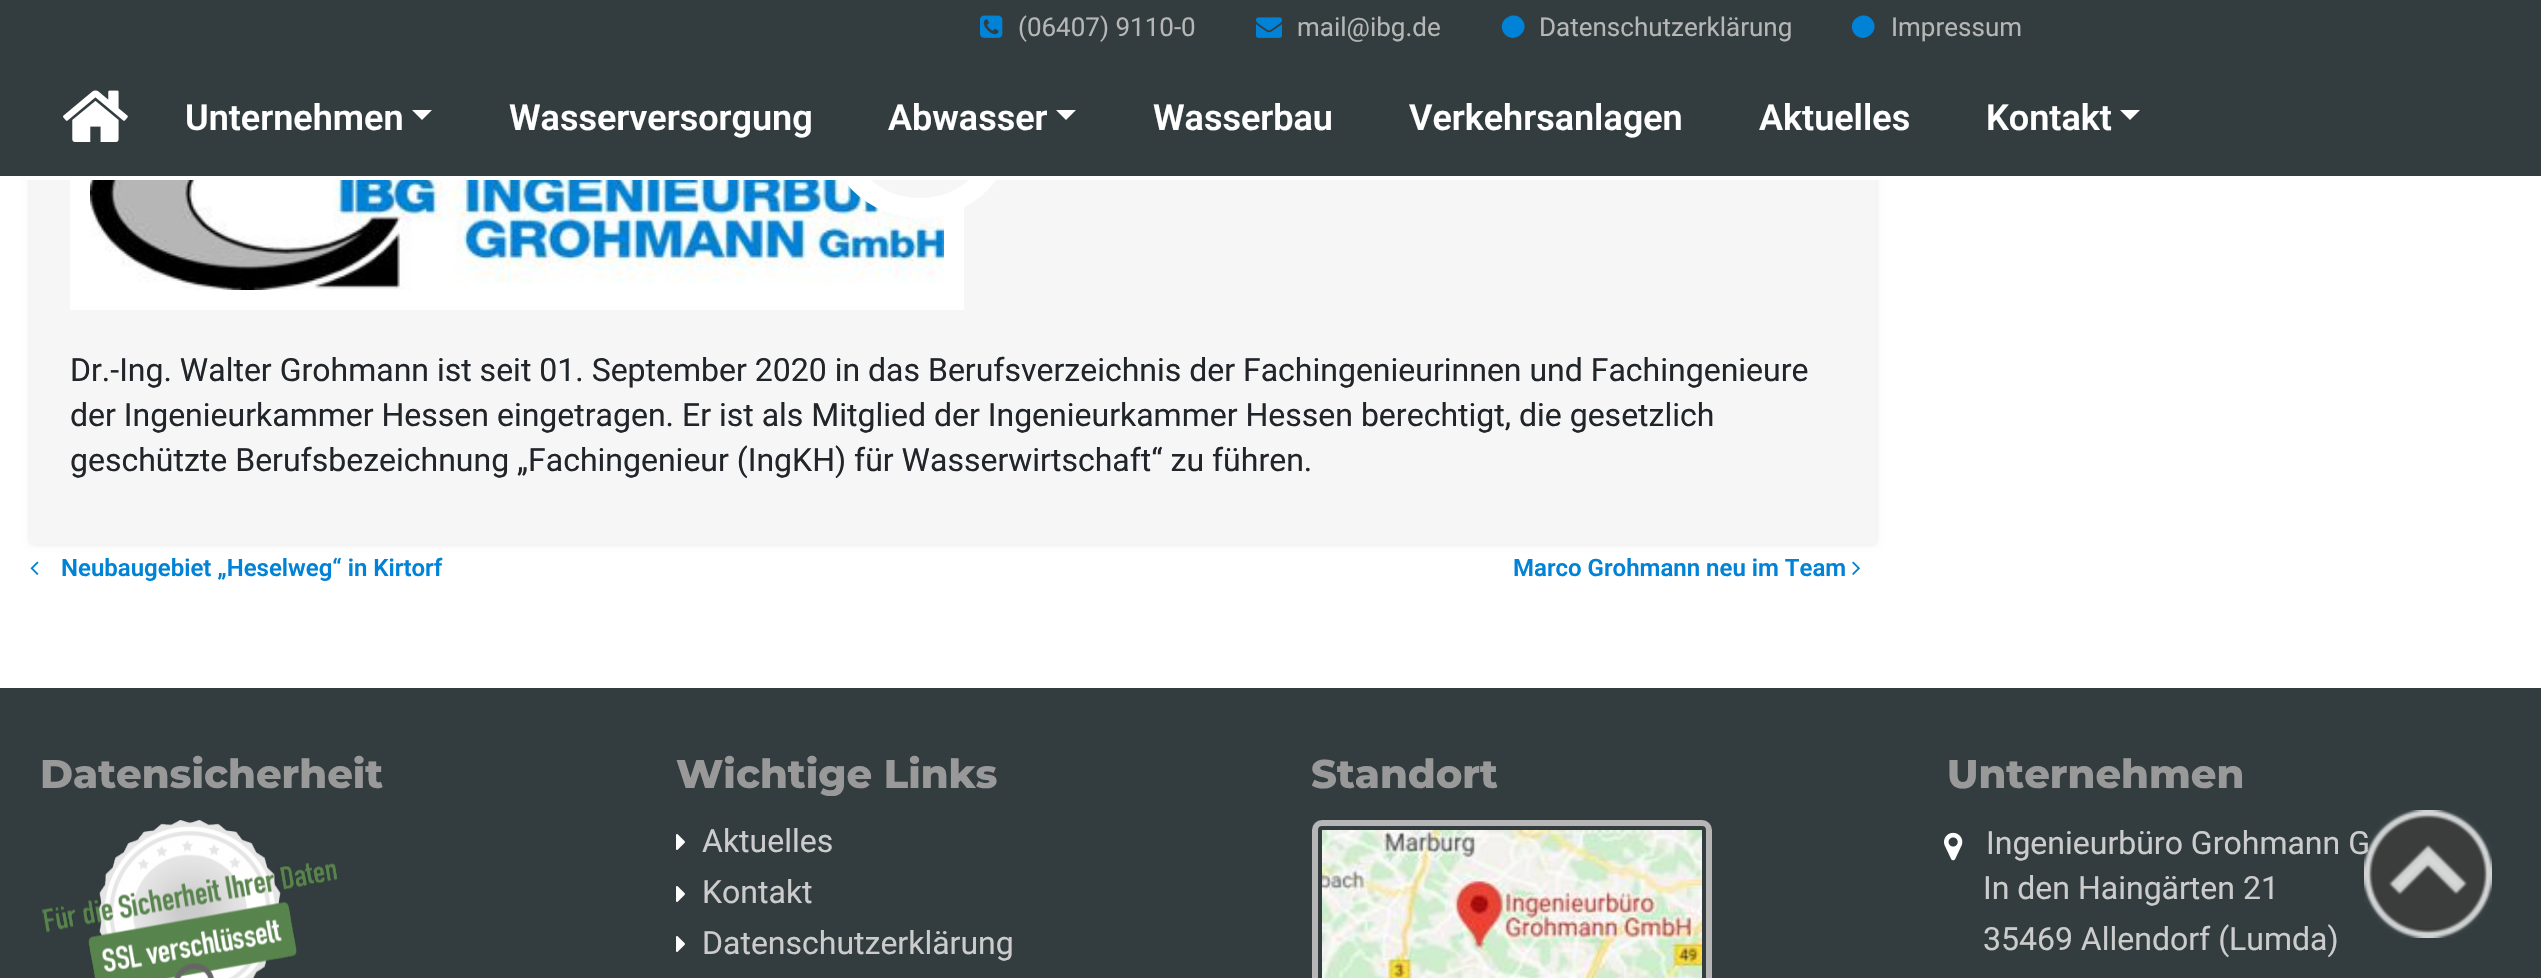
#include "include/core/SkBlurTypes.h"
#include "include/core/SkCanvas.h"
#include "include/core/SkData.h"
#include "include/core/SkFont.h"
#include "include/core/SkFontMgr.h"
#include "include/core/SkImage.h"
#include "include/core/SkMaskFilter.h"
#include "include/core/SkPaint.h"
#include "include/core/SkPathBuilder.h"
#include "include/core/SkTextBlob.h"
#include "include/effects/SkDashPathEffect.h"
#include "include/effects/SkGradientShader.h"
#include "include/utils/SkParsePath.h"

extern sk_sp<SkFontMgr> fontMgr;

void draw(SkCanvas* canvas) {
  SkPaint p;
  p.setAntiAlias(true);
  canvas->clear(SK_ColorWHITE);
  p.setColor(SkColorSetRGB(246, 246, 246));
  canvas->drawRect(SkRect::MakeLTRB(30, 180, 1876, 544), p);
  canvas->save();
  canvas->clipPath(SkPathBuilder(SkPathFillType::kEvenOdd).moveTo(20, 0).lineTo(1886, 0).lineTo(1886, 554).lineTo(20, 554).close().moveTo(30, -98).lineTo(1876, -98).lineTo(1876, 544).lineTo(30, 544).close().detach(), true);
  p.setColor(SkColorSetARGB(26, 0, 0, 0));
  p.setMaskFilter(SkMaskFilter::MakeBlur(kNormal_SkBlurStyle, 3));
  canvas->drawRect(SkRect::MakeLTRB(30, -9, 1876, 544), p);
  p.setMaskFilter(nullptr);
  canvas->restore();
  p.setStyle(SkPaint::kStroke_Style);
  p.setStrokeWidth(20);
  p.setColor(SK_ColorWHITE);
  canvas->drawRect(SkRect::MakeLTRB(80, 88, 954, 300), p);
  canvas->drawImageRect(SkImages::DeferredFromEncodedData(SkData::MakeFromFileName("images/4.png")), SkRect::MakeLTRB(90, 180, 944, 290), SkSamplingOptions());
  p.setStyle(SkPaint::kFill_Style);
  p.setColor(SkColorSetRGB(246, 246, 246));
  canvas->drawCircle(920, 122, 86, p);
  p.setStyle(SkPaint::kStroke_Style);
  p.setColor(SK_ColorWHITE);
  canvas->drawCircle(920, 122, 86, p);
  p.setStyle(SkPaint::kFill_Style);
  p.setColor(SkColorSetRGB(51, 61, 64));
  canvas->drawRect(SkRect::MakeLTRB(0, 0, 2541, 176), p);
  canvas->drawImageRect(SkImages::DeferredFromEncodedData(SkData::MakeFromFileName("images/1.png")), SkRect::MakeLTRB(980, 15, 1003, 38), SkSamplingOptions());
  canvas->drawImageRect(SkImages::DeferredFromEncodedData(SkData::MakeFromFileName("images/2.png")), SkRect::MakeLTRB(1256, 17, 1282, 38), SkSamplingOptions());
  p.setColor(SkColorSetRGB(0, 130, 214));
  canvas->drawPath(SkPathBuilder().moveTo(1523, 21).cubicTo(1530, 33.5f, 1511, 45, 1503.5f, 32.5f).cubicTo(1496, 19.5f, 1515.5f, 8.5f, 1523, 21).close().detach(), p);
  canvas->drawPath(SkPathBuilder().moveTo(1873, 21).cubicTo(1880, 33.5f, 1861, 45, 1853.5f, 32.5f).cubicTo(1846, 19.5f, 1865.5f, 8.5f, 1873, 21).close().detach(), p);
  p.setColor(SK_ColorWHITE);
  canvas->drawRect(SkRect::MakeLTRB(26, 176, 1880, 180), p);
  canvas->drawImageRect(SkImages::DeferredFromEncodedData(SkData::MakeFromFileName("images/3.png")), SkRect::MakeLTRB(63, 90, 128, 142), SkSamplingOptions());
  canvas->drawPath(SkPathBuilder().moveTo(412, 110).lineTo(432, 110).lineTo(422, 120).close().detach(), p);
  canvas->drawPath(SkPathBuilder().moveTo(1056, 110).lineTo(1076, 110).lineTo(1066, 120).close().detach(), p);
  canvas->drawPath(SkPathBuilder().moveTo(2120, 110).lineTo(2140, 110).lineTo(2130, 120).close().detach(), p);
  canvas->drawImageRect(SkImages::DeferredFromEncodedData(SkData::MakeFromFileName("images/5.png")), SkRect::MakeLTRB(30, 561, 39, 575), SkSamplingOptions());
  canvas->drawImageRect(SkImages::DeferredFromEncodedData(SkData::MakeFromFileName("images/6.png")), SkRect::MakeLTRB(1852, 561, 1860, 575), SkSamplingOptions());
  p.setColor(SkColorSetRGB(51, 61, 64));
  canvas->drawRect(SkRect::MakeLTRB(0, 688, 2541, 978), p);
  canvas->drawImageRect(SkImages::DeferredFromEncodedData(SkData::MakeFromFileName("images/7.png")), SkRect::MakeLTRB(42, 820, 338, 978), SkSamplingOptions());
  canvas->drawImageRect(SkImages::DeferredFromEncodedData(SkData::MakeFromFileName("images/8.png")), SkRect::MakeLTRB(676, 834, 685, 850), SkSamplingOptions());
  canvas->drawImageRect(SkImages::DeferredFromEncodedData(SkData::MakeFromFileName("images/8.png")), SkRect::MakeLTRB(676, 886, 685, 902), SkSamplingOptions());
  canvas->drawImageRect(SkImages::DeferredFromEncodedData(SkData::MakeFromFileName("images/8.png")), SkRect::MakeLTRB(676, 936, 685, 952), SkSamplingOptions());
  p.setStyle(SkPaint::kStroke_Style);
  p.setStrokeWidth(6);
  p.setColor(SkColorSetRGB(182, 182, 182));
  canvas->drawRoundRect(SkRect::MakeLTRB(1315, 823, 1709, 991), 7, 7, p);
  canvas->drawImageRect(SkImages::DeferredFromEncodedData(SkData::MakeFromFileName("images/9.png")), SkRect::MakeLTRB(1322, 830, 1702, 978), SkSamplingOptions());
  canvas->drawImageRect(SkImages::DeferredFromEncodedData(SkData::MakeFromFileName("images/10.png")), SkRect::MakeLTRB(1944, 832, 1963, 861), SkSamplingOptions());
  SkFont font1(fontMgr->matchFamilyStyle("Roboto", SkFontStyle::Normal()), 26);
  font1.setSubpixel(true);
  p.setStyle(SkPaint::kFill_Style);
  canvas->drawString("(06407) 9110-0", 1018, 36, font1, p);
  canvas->drawString("mail@ibg.de", 1297, 36, font1, p);
  canvas->drawString("Datenschutzerklärung", 1539, 36, font1, p);
  canvas->drawString("Impressum", 1891, 36, font1, p);
  SkFont font2(fontMgr->matchFamilyStyle("Roboto", SkFontStyle(600, SkFontStyle::kNormal_Width, SkFontStyle::kUpright_Slant)), 36);
  font2.setSubpixel(true);
  p.setColor(SK_ColorWHITE);
  canvas->drawString("Unternehmen", 185, 130, font2, p);
  canvas->drawString("Wasserversorgung", 509, 130, font2, p);
  canvas->drawString("Abwasser", 888, 130, font2, p);
  canvas->drawString("Wasserbau", 1153, 130, font2, p);
  canvas->drawString("Verkehrsanlagen", 1409, 130, font2, p);
  canvas->drawString("Aktuelles", 1759, 130, font2, p);
  canvas->drawString("Kontakt", 1986, 130, font2, p);
  SkFont font3(fontMgr->matchFamilyStyle("Roboto", SkFontStyle::Normal()), 32);
  font3.setSubpixel(true);
  p.setColor(SkColorSetRGB(33, 37, 41));
  canvas->drawString("Dr.-Ing. Walter Grohmann ist seit 01. September 2020 in das Berufsverzeichnis der Fachingenieurinnen und Fachingenieure", 70, 381, font3, p);
  canvas->drawString("der Ingenieurkammer Hessen eingetragen. Er ist als Mitglied der Ingenieurkammer Hessen berechtigt, die gesetzlich", 70, 426, font3, p);
  canvas->drawString("geschützte Berufsbezeichnung „Fachingenieur (IngKH) für Wasserwirtschaft“ zu führen.", 70, 471, font3, p);
  SkFont font4(fontMgr->matchFamilyStyle("Roboto", SkFontStyle(600, SkFontStyle::kNormal_Width, SkFontStyle::kUpright_Slant)), 24);
  font4.setSubpixel(true);
  p.setColor(SkColorSetRGB(0, 130, 214));
  canvas->drawString("Neubaugebiet „Heselweg“ in Kirtorf", 61, 576, font4, p);
  canvas->drawString("Marco Grohmann neu im Team", 1513, 576, font4, p);
  SkFont font5(fontMgr->matchFamilyStyle("Montserrat", SkFontStyle(800, SkFontStyle::kNormal_Width, SkFontStyle::kUpright_Slant)), 40);
  font5.setSubpixel(true);
  p.setColor(SkColorSetRGB(153, 153, 153));
  canvas->drawString("Datensicherheit", 40, 788, font5, p);
  canvas->drawString("Wichtige Links", 676, 788, font5, p);
  p.setColor(SkColorSetRGB(204, 204, 204));
  canvas->drawString("Aktuelles", 702, 852, font3, p);
  canvas->drawString("Kontakt", 702, 903, font3, p);
  canvas->drawString("Datenschutzerklärung", 702, 954, font3, p);
  p.setColor(SkColorSetRGB(153, 153, 153));
  canvas->drawString("Standort", 1311, 788, font5, p);
  canvas->drawString("Unternehmen", 1947, 788, font5, p);
  p.setColor(SkColorSetRGB(204, 204, 204));
  canvas->drawString("Ingenieurbüro Grohmann G", 1986, 854, font3, p);
  canvas->drawString("In den Haingärten 21", 1983, 899, font3, p);
  canvas->drawString("35469 Allendorf (Lumda)", 1983, 950, font3, p);
  canvas->drawImageRect(SkImages::DeferredFromEncodedData(SkData::MakeFromFileName("images/11.png")), SkRect::MakeLTRB(2364, 810, 2492, 938), SkSamplingOptions());
}
